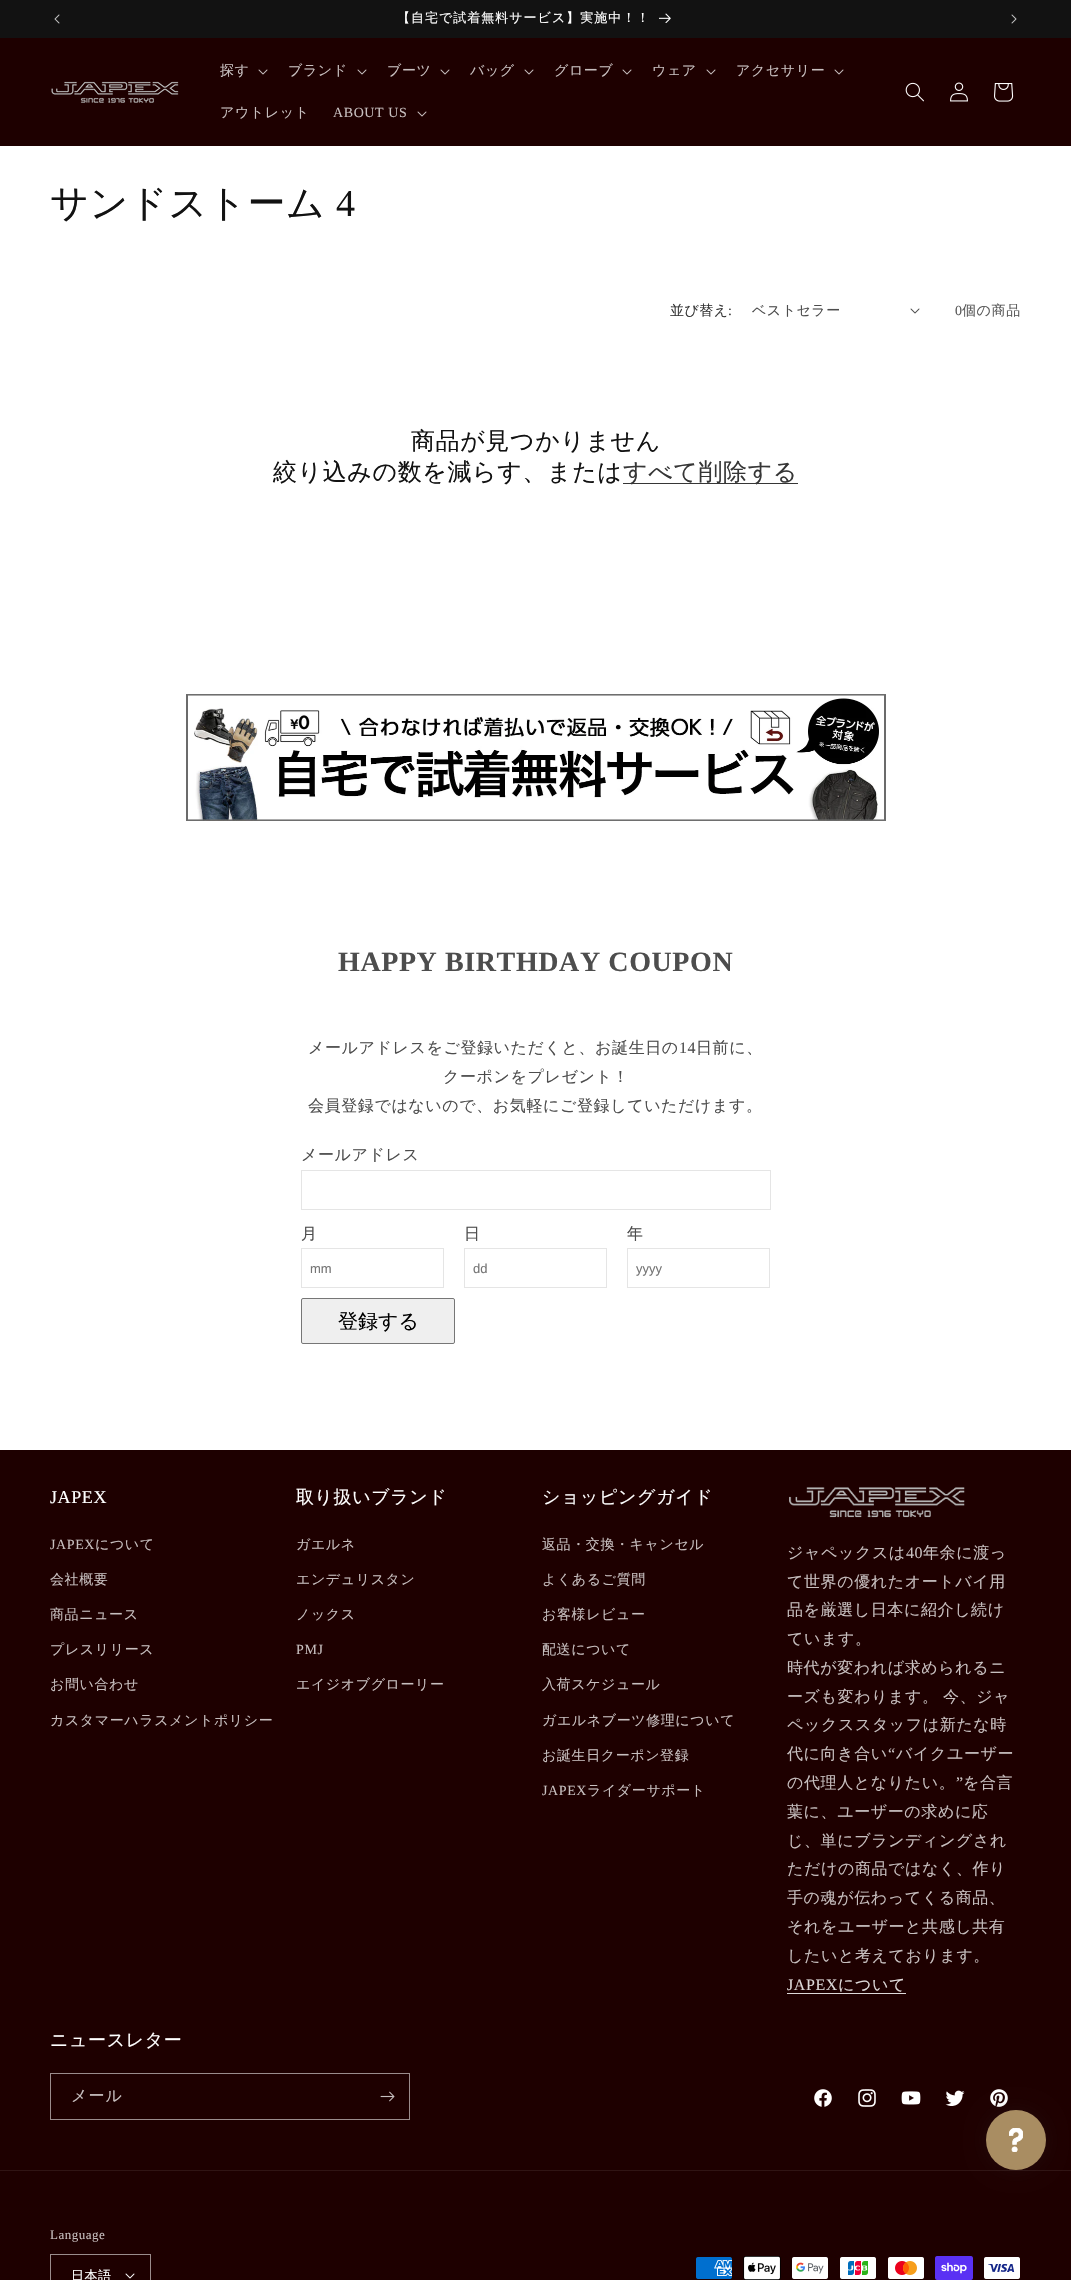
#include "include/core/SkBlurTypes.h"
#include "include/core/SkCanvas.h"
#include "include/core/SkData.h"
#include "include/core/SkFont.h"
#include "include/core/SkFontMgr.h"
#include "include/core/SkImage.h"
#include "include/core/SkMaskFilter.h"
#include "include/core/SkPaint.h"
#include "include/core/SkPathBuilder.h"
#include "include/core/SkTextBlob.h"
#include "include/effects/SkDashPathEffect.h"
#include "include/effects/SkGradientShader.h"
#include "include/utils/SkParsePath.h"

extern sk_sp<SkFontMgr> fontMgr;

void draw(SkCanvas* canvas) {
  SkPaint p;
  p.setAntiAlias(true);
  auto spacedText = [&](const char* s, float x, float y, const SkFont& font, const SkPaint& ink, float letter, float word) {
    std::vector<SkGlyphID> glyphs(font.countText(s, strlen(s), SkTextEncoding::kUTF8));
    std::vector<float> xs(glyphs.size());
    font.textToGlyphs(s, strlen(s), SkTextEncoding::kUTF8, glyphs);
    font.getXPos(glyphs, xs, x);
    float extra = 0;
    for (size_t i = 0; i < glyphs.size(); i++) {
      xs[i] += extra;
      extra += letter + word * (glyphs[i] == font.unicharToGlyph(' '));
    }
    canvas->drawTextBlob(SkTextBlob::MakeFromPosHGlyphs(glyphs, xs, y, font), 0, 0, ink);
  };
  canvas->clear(SK_ColorWHITE);
  p.setColor(SkColorSetRGB(18, 18, 18));
  canvas->drawRect(SkRect::MakeLTRB(0, 0, 1071, 38), p);
  canvas->drawImageRect(SkImages::DeferredFromEncodedData(SkData::MakeFromFileName("images/1.png")), SkRect::MakeLTRB(54, 14, 60, 24), SkSamplingOptions());
  canvas->drawImageRect(SkImages::DeferredFromEncodedData(SkData::MakeFromFileName("images/2.png")), SkRect::MakeLTRB(659, 13, 671, 23), SkSamplingOptions());
  canvas->drawImageRect(SkImages::DeferredFromEncodedData(SkData::MakeFromFileName("images/3.png")), SkRect::MakeLTRB(1011, 14, 1017, 24), SkSamplingOptions());
  p.setColor(SkColorSetRGB(30, 0, 0));
  canvas->drawRect(SkRect::MakeLTRB(0, 38, 1071, 146), p);
  canvas->drawImageRect(SkImages::DeferredFromEncodedData(SkData::MakeFromFileName("images/4.png")), SkRect::MakeLTRB(51, 81, 179, 103), SkSamplingOptions());
  canvas->drawImageRect(SkImages::DeferredFromEncodedData(SkData::MakeFromFileName("images/5.png")), SkRect::MakeLTRB(258, 69, 268, 75), SkSamplingOptions());
  canvas->drawImageRect(SkImages::DeferredFromEncodedData(SkData::MakeFromFileName("images/5.png")), SkRect::MakeLTRB(357, 69, 367, 75), SkSamplingOptions());
  canvas->drawImageRect(SkImages::DeferredFromEncodedData(SkData::MakeFromFileName("images/5.png")), SkRect::MakeLTRB(440, 69, 450, 75), SkSamplingOptions());
  canvas->drawImageRect(SkImages::DeferredFromEncodedData(SkData::MakeFromFileName("images/5.png")), SkRect::MakeLTRB(524, 69, 534, 75), SkSamplingOptions());
  canvas->drawImageRect(SkImages::DeferredFromEncodedData(SkData::MakeFromFileName("images/5.png")), SkRect::MakeLTRB(622, 69, 632, 75), SkSamplingOptions());
  canvas->drawImageRect(SkImages::DeferredFromEncodedData(SkData::MakeFromFileName("images/5.png")), SkRect::MakeLTRB(706, 69, 716, 75), SkSamplingOptions());
  canvas->drawImageRect(SkImages::DeferredFromEncodedData(SkData::MakeFromFileName("images/5.png")), SkRect::MakeLTRB(834, 69, 844, 75), SkSamplingOptions());
  canvas->drawImageRect(SkImages::DeferredFromEncodedData(SkData::MakeFromFileName("images/5.png")), SkRect::MakeLTRB(417, 111, 427, 117), SkSamplingOptions());
  canvas->drawImageRect(SkImages::DeferredFromEncodedData(SkData::MakeFromFileName("images/6.png")), SkRect::MakeLTRB(905, 82, 924, 102), SkSamplingOptions());
  canvas->drawImageRect(SkImages::DeferredFromEncodedData(SkData::MakeFromFileName("images/7.png")), SkRect::MakeLTRB(950, 82, 968, 102), SkSamplingOptions());
  canvas->drawImageRect(SkImages::DeferredFromEncodedData(SkData::MakeFromFileName("images/8.png")), SkRect::MakeLTRB(994, 83, 1014, 102), SkSamplingOptions());
  canvas->drawImageRect(SkImages::DeferredFromEncodedData(SkData::MakeFromFileName("images/9.png")), SkRect::MakeLTRB(910, 308, 920, 314), SkSamplingOptions());
  p.setColor(SkColorSetRGB(54, 54, 54));
  canvas->drawRect(SkRect::MakeLTRB(623, 483, 798, 484), p);
  canvas->drawImageRect(SkImages::DeferredFromEncodedData(SkData::MakeFromFileName("images/10.png")), SkRect::MakeLTRB(186, 694, 886, 821), SkSamplingOptions());
  p.setStyle(SkPaint::kStroke_Style);
  p.setStrokeWidth(1);
  p.setColor(SkColorSetRGB(229, 229, 229));
  canvas->drawRect(SkRect::MakeLTRB(301.5f, 1170.5f, 770.5f, 1209.5f), p);
  canvas->drawRect(SkRect::MakeLTRB(301.5f, 1248.5f, 443.5f, 1287.5f), p);
  canvas->drawRect(SkRect::MakeLTRB(464.5f, 1248.5f, 606.5f, 1287.5f), p);
  canvas->drawRect(SkRect::MakeLTRB(627.5f, 1248.5f, 769.5f, 1287.5f), p);
  p.setStyle(SkPaint::kFill_Style);
  p.setColor(SkColorSetRGB(239, 239, 239));
  canvas->drawRoundRect(SkRect::MakeLTRB(301.5f, 1298.5f, 454.5f, 1343.5f), 1.5f, 1.5f, p);
  p.setStyle(SkPaint::kStroke_Style);
  p.setColor(SkColorSetRGB(118, 118, 118));
  canvas->drawRoundRect(SkRect::MakeLTRB(301.5f, 1298.5f, 454.5f, 1343.5f), 1.5f, 1.5f, p);
  p.setStyle(SkPaint::kFill_Style);
  p.setColor(SkColorSetRGB(30, 0, 0));
  canvas->drawRect(SkRect::MakeLTRB(0, 1450, 1071, 2280), p);
  canvas->drawImageRect(SkImages::DeferredFromEncodedData(SkData::MakeFromFileName("images/11.png")), SkRect::MakeLTRB(789, 1487, 965, 1518), SkSamplingOptions());
  p.setColor(SkColorSetRGB(221, 217, 217));
  canvas->drawRect(SkRect::MakeLTRB(787, 1993, 906, 1994), p);
  p.setStyle(SkPaint::kStroke_Style);
  p.setColor(SkColorSetRGB(154, 140, 140));
  canvas->drawRect(SkRect::MakeLTRB(50.5f, 2073.5f, 409.5f, 2119.5f), p);
  canvas->drawImageRect(SkImages::DeferredFromEncodedData(SkData::MakeFromFileName("images/12.png")), SkRect::MakeLTRB(380, 2091, 395, 2102), SkSamplingOptions());
  canvas->drawImageRect(SkImages::DeferredFromEncodedData(SkData::MakeFromFileName("images/13.png")), SkRect::MakeLTRB(814, 2089, 832, 2107), SkSamplingOptions());
  canvas->drawImageRect(SkImages::DeferredFromEncodedData(SkData::MakeFromFileName("images/14.png")), SkRect::MakeLTRB(858, 2089, 876, 2107), SkSamplingOptions());
  canvas->drawImageRect(SkImages::DeferredFromEncodedData(SkData::MakeFromFileName("images/15.png")), SkRect::MakeLTRB(901, 2091, 921, 2105), SkSamplingOptions());
  canvas->drawImageRect(SkImages::DeferredFromEncodedData(SkData::MakeFromFileName("images/16.png")), SkRect::MakeLTRB(945, 2090, 965, 2106), SkSamplingOptions());
  canvas->drawImageRect(SkImages::DeferredFromEncodedData(SkData::MakeFromFileName("images/17.png")), SkRect::MakeLTRB(990, 2089, 1008, 2107), SkSamplingOptions());
  p.setStyle(SkPaint::kFill_Style);
  p.setColor(SkColorSetRGB(48, 20, 20));
  canvas->drawRect(SkRect::MakeLTRB(0, 2170, 1071, 2171), p);
  canvas->drawImageRect(SkImages::DeferredFromEncodedData(SkData::MakeFromFileName("images/18.png")), SkRect::MakeLTRB(125, 2273, 135, 2279), SkSamplingOptions());
  p.setStyle(SkPaint::kStroke_Style);
  p.setColor(SkColorSetRGB(154, 140, 140));
  canvas->drawRect(SkRect::MakeLTRB(50.5f, 2254.5f, 150.5f, 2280.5f), p);
  canvas->drawImageRect(SkImages::DeferredFromEncodedData(SkData::MakeFromFileName("images/19.png")), SkRect::MakeLTRB(696, 2257, 732, 2279), SkSamplingOptions());
  canvas->drawImageRect(SkImages::DeferredFromEncodedData(SkData::MakeFromFileName("images/20.png")), SkRect::MakeLTRB(743, 2256, 781, 2280), SkSamplingOptions());
  canvas->drawImageRect(SkImages::DeferredFromEncodedData(SkData::MakeFromFileName("images/21.png")), SkRect::MakeLTRB(792, 2257, 828, 2279), SkSamplingOptions());
  canvas->drawImageRect(SkImages::DeferredFromEncodedData(SkData::MakeFromFileName("images/22.png")), SkRect::MakeLTRB(840, 2257, 876, 2279), SkSamplingOptions());
  canvas->drawImageRect(SkImages::DeferredFromEncodedData(SkData::MakeFromFileName("images/23.png")), SkRect::MakeLTRB(888, 2257, 924, 2279), SkSamplingOptions());
  canvas->drawImageRect(SkImages::DeferredFromEncodedData(SkData::MakeFromFileName("images/24.png")), SkRect::MakeLTRB(935, 2256, 973, 2280), SkSamplingOptions());
  canvas->drawImageRect(SkImages::DeferredFromEncodedData(SkData::MakeFromFileName("images/25.png")), SkRect::MakeLTRB(984, 2257, 1020, 2279), SkSamplingOptions());
  p.setStyle(SkPaint::kFill_Style);
  p.setColor(SkColorSetARGB(51, 51, 51, 51));
  p.setMaskFilter(SkMaskFilter::MakeBlur(kNormal_SkBlurStyle, 10));
  canvas->drawRoundRect(SkRect::MakeLTRB(986, 2110, 1046, 2170), 30, 30, p);
  p.setMaskFilter(nullptr);
  p.setColor(SkColorSetRGB(169, 141, 98));
  canvas->drawCircle(1016, 2140, 30, p);
  canvas->drawImageRect(SkImages::DeferredFromEncodedData(SkData::MakeFromFileName("images/26.png")), SkRect::MakeLTRB(1009, 2128, 1023, 2152), SkSamplingOptions());
  SkFont font1(fontMgr->matchFamilyStyle("WenQuanYi Zen Hei", SkFontStyle(500, SkFontStyle::kNormal_Width, SkFontStyle::kUpright_Slant)), 13);
  font1.setSubpixel(true);
  p.setColor(SK_ColorWHITE);
  spacedText("【自宅で試着無料サービス】実施中！！", 397, 22, font1, p, 1, 0);
  SkFont font2(fontMgr->matchFamilyStyle("WenQuanYi Zen Hei", SkFontStyle(500, SkFontStyle::kNormal_Width, SkFontStyle::kUpright_Slant)), 14);
  font2.setSubpixel(true);
  p.setColor(SkColorSetRGB(199, 191, 191));
  spacedText("探す", 220, 75, font2, p, 0.6f, 0);
  spacedText("ブランド", 288, 75, font2, p, 0.6f, 0);
  spacedText("ブーツ", 387, 75, font2, p, 0.6f, 0);
  spacedText("バッグ", 470, 75, font2, p, 0.6f, 0);
  spacedText("グローブ", 554, 75, font2, p, 0.6f, 0);
  spacedText("ウェア", 652, 75, font2, p, 0.6f, 0);
  spacedText("アクセサリー", 736, 75, font2, p, 0.6f, 0);
  spacedText("アウトレット", 220, 117, font2, p, 0.6f, 0);
  SkFont font3(fontMgr->matchFamilyStyle("Liberation Serif", SkFontStyle::Normal()), 14);
  font3.setSubpixel(true);
  spacedText("ABOUT US", 333, 117, font3, p, 0.6f, 0);
  SkFont font4(fontMgr->matchFamilyStyle("WenQuanYi Zen Hei", SkFontStyle(500, SkFontStyle::kNormal_Width, SkFontStyle::kUpright_Slant)), 38);
  font4.setSubpixel(true);
  p.setColor(SkColorSetRGB(18, 18, 18));
  spacedText("サンドストーム", 50, 216, font4, p, 0.6f, 0);
  SkFont font5(fontMgr->matchFamilyStyle("Liberation Serif", SkFontStyle::Normal()), 38);
  font5.setSubpixel(true);
  spacedText("4", 336, 216, font5, p, 0.6f, 0);
  p.setColor(SkColorSetRGB(54, 54, 54));
  spacedText("並び替え", 670, 315, font2, p, 0.5f, 0);
  spacedText(":", 728, 315, font3, p, 0.5f, 0);
  p.setColor(SkColorSetRGB(77, 77, 77));
  spacedText("ベストセラー", 752, 315, font2, p, 0.5f, 0);
  p.setColor(SkColorSetRGB(89, 89, 89));
  spacedText("0", 955, 315, font3, p, 0.6f, 0);
  spacedText("個の商品", 962, 315, font2, p, 0.6f, 0);
  SkFont font6(fontMgr->matchFamilyStyle("WenQuanYi Zen Hei", SkFontStyle(500, SkFontStyle::kNormal_Width, SkFontStyle::kUpright_Slant)), 24);
  font6.setSubpixel(true);
  p.setColor(SkColorSetRGB(18, 18, 18));
  spacedText("商品が見つかりません", 411, 449, font6, p, 0.6f, 0);
  spacedText("絞り込みの数を減らす、または", 273, 480, font6, p, 0.6f, 0);
  p.setColor(SkColorSetRGB(54, 54, 54));
  spacedText("すべて削除する", 623, 480, font6, p, 0.6f, 0);
  SkFont font7(fontMgr->matchFamilyStyle("Liberation Serif", SkFontStyle::Bold()), 28);
  font7.setSubpixel(true);
  p.setColor(SkColorSetRGB(77, 77, 77));
  spacedText("HAPPY BIRTHDAY COUPON", 338, 971, font7, p, 0.6f, 0);
  SkFont font8(fontMgr->matchFamilyStyle("WenQuanYi Zen Hei", SkFontStyle(500, SkFontStyle::kNormal_Width, SkFontStyle::kUpright_Slant)), 16);
  font8.setSubpixel(true);
  spacedText("メールアドレスをご登録いただくと、お誕生日の", 308, 1053, font8, p, 0.6f, 0);
  SkFont font9(fontMgr->matchFamilyStyle("Liberation Serif", SkFontStyle::Normal()), 16);
  font9.setSubpixel(true);
  spacedText("14", 679, 1053, font9, p, 0.6f, 0);
  spacedText("日前に、", 696, 1053, font8, p, 0.6f, 0);
  spacedText("クーポンをプレゼント！", 443, 1082, font8, p, 0.6f, 0);
  spacedText("会員登録ではないので、お気軽にご登録していただけます。", 308, 1111, font8, p, 0.6f, 0);
  spacedText("メールアドレス", 301, 1160, font8, p, 0.6f, 0);
  spacedText("月", 301, 1239, font8, p, 0.6f, 0);
  SkFont font10(fontMgr->matchFamilyStyle("Liberation Sans", SkFontStyle::Normal()), 13);
  font10.setSubpixel(true);
  p.setColor(SkColorSetRGB(117, 117, 117));
  canvas->drawString("mm", 310, 1273, font10, p);
  p.setColor(SkColorSetRGB(77, 77, 77));
  spacedText("日", 464, 1239, font8, p, 0.6f, 0);
  p.setColor(SkColorSetRGB(117, 117, 117));
  canvas->drawString("dd", 473, 1273, font10, p);
  p.setColor(SkColorSetRGB(77, 77, 77));
  spacedText("年", 627, 1239, font8, p, 0.6f, 0);
  p.setColor(SkColorSetRGB(117, 117, 117));
  canvas->drawString("yyyy", 636, 1273, font10, p);
  SkFont font11(fontMgr->matchFamilyStyle("WenQuanYi Zen Hei", SkFontStyle(500, SkFontStyle::kNormal_Width, SkFontStyle::kUpright_Slant)), 20);
  font11.setSubpixel(true);
  p.setColor(SK_ColorBLACK);
  canvas->drawString("登録する", 338, 1328, font11, p);
  SkFont font12(fontMgr->matchFamilyStyle("Liberation Serif", SkFontStyle::Normal()), 18);
  font12.setSubpixel(true);
  p.setColor(SK_ColorWHITE);
  spacedText("JAPEX", 50, 1503, font12, p, 0.6f, 0);
  p.setColor(SkColorSetRGB(199, 191, 191));
  spacedText("JAPEX", 50, 1549, font3, p, 0.6f, 0);
  spacedText("について", 95, 1549, font2, p, 0.6f, 0);
  spacedText("会社概要", 50, 1584, font2, p, 0.6f, 0);
  spacedText("商品ニュース", 50, 1619, font2, p, 0.6f, 0);
  spacedText("プレスリリース", 50, 1654, font2, p, 0.6f, 0);
  spacedText("お問い合わせ", 50, 1689, font2, p, 0.6f, 0);
  spacedText("カスタマーハラスメントポリシー", 50, 1725, font2, p, 0.6f, 0);
  SkFont font13(fontMgr->matchFamilyStyle("WenQuanYi Zen Hei", SkFontStyle(500, SkFontStyle::kNormal_Width, SkFontStyle::kUpright_Slant)), 18);
  font13.setSubpixel(true);
  p.setColor(SK_ColorWHITE);
  spacedText("取り扱いブランド", 296, 1503, font13, p, 0.6f, 0);
  p.setColor(SkColorSetRGB(199, 191, 191));
  spacedText("ガエルネ", 296, 1549, font2, p, 0.6f, 0);
  spacedText("エンデュリスタン", 296, 1584, font2, p, 0.6f, 0);
  spacedText("ノックス", 296, 1619, font2, p, 0.6f, 0);
  spacedText("PMJ", 296, 1654, font3, p, 0.6f, 0);
  spacedText("エイジオブグローリー", 296, 1689, font2, p, 0.6f, 0);
  p.setColor(SK_ColorWHITE);
  spacedText("ショッピングガイド", 542, 1503, font13, p, 0.6f, 0);
  p.setColor(SkColorSetRGB(199, 191, 191));
  spacedText("返品・交換・キャンセル", 542, 1549, font2, p, 0.6f, 0);
  spacedText("よくあるご質問", 542, 1584, font2, p, 0.6f, 0);
  spacedText("お客様レビュー", 542, 1619, font2, p, 0.6f, 0);
  spacedText("配送について", 542, 1654, font2, p, 0.6f, 0);
  spacedText("入荷スケジュール", 542, 1689, font2, p, 0.6f, 0);
  spacedText("ガエルネブーツ修理について", 542, 1725, font2, p, 0.6f, 0);
  spacedText("お誕生日クーポン登録", 542, 1760, font2, p, 0.6f, 0);
  spacedText("JAPEX", 542, 1795, font3, p, 0.6f, 0);
  spacedText("ライダーサポート", 587, 1795, font2, p, 0.6f, 0);
  spacedText("ジャペックスは", 787, 1558, font8, p, 0.6f, 0);
  spacedText("40", 906, 1558, font9, p, 0.6f, 0);
  spacedText("年余に渡っ", 923, 1558, font8, p, 0.6f, 0);
  spacedText("て世界の優れたオートバイ用", 787, 1587, font8, p, 0.6f, 0);
  spacedText("品を厳選し日本に紹介し続け", 787, 1615, font8, p, 0.6f, 0);
  spacedText("ています。", 787, 1644, font8, p, 0.6f, 0);
  spacedText("時代が変われば求められるニ", 787, 1673, font8, p, 0.6f, 0);
  spacedText("ーズも変わります。 今、ジャ", 787, 1702, font8, p, 0.6f, -1);
  spacedText("ペックススタッフは新たな時", 787, 1730, font8, p, 0.6f, 0);
  spacedText("代に向き合い", 787, 1759, font8, p, 0.6f, 0);
  spacedText("“", 888, 1759, font9, p, 0.6f, 0);
  spacedText("バイクユーザー", 896, 1759, font8, p, 0.6f, 0);
  spacedText("の代理人となりたい。", 787, 1788, font8, p, 0.6f, 0);
  spacedText("”", 956, 1788, font9, p, 0.6f, 0);
  spacedText("を合言", 963, 1788, font8, p, 0.6f, 0);
  spacedText("葉に、ユーザーの求めに応", 787, 1817, font8, p, 0.6f, 0);
  spacedText("じ、単にブランディングされ", 787, 1846, font8, p, 0.6f, 0);
  spacedText("ただけの商品ではなく、作り", 787, 1874, font8, p, 0.6f, 0);
  spacedText("手の魂が伝わってくる商品、", 787, 1903, font8, p, 0.6f, 0);
  spacedText("それをユーザーと共感し共有", 787, 1932, font8, p, 0.6f, 0);
  spacedText("したいと考えております。", 787, 1961, font8, p, 0.6f, 0);
  p.setColor(SkColorSetRGB(221, 217, 217));
  spacedText("JAPEX", 787, 1990, font9, p, 0.6f, 0);
  spacedText("について", 838, 1990, font8, p, 0.6f, 0);
  p.setColor(SK_ColorWHITE);
  spacedText("ニュースレター", 50, 2046, font13, p, 0.6f, 0);
  p.setColor(SkColorSetRGB(199, 191, 191));
  spacedText("メール", 71, 2101, font8, p, 1, 0);
  SkFont font14(fontMgr->matchFamilyStyle("Liberation Serif", SkFontStyle::Normal()), 13);
  font14.setSubpixel(true);
  spacedText("Language", 50, 2239, font14, p, 0.5f, 0);
  p.setColor(SK_ColorWHITE);
  spacedText("日本語", 71, 2280, font1, p, 0.5f, 0);
}
